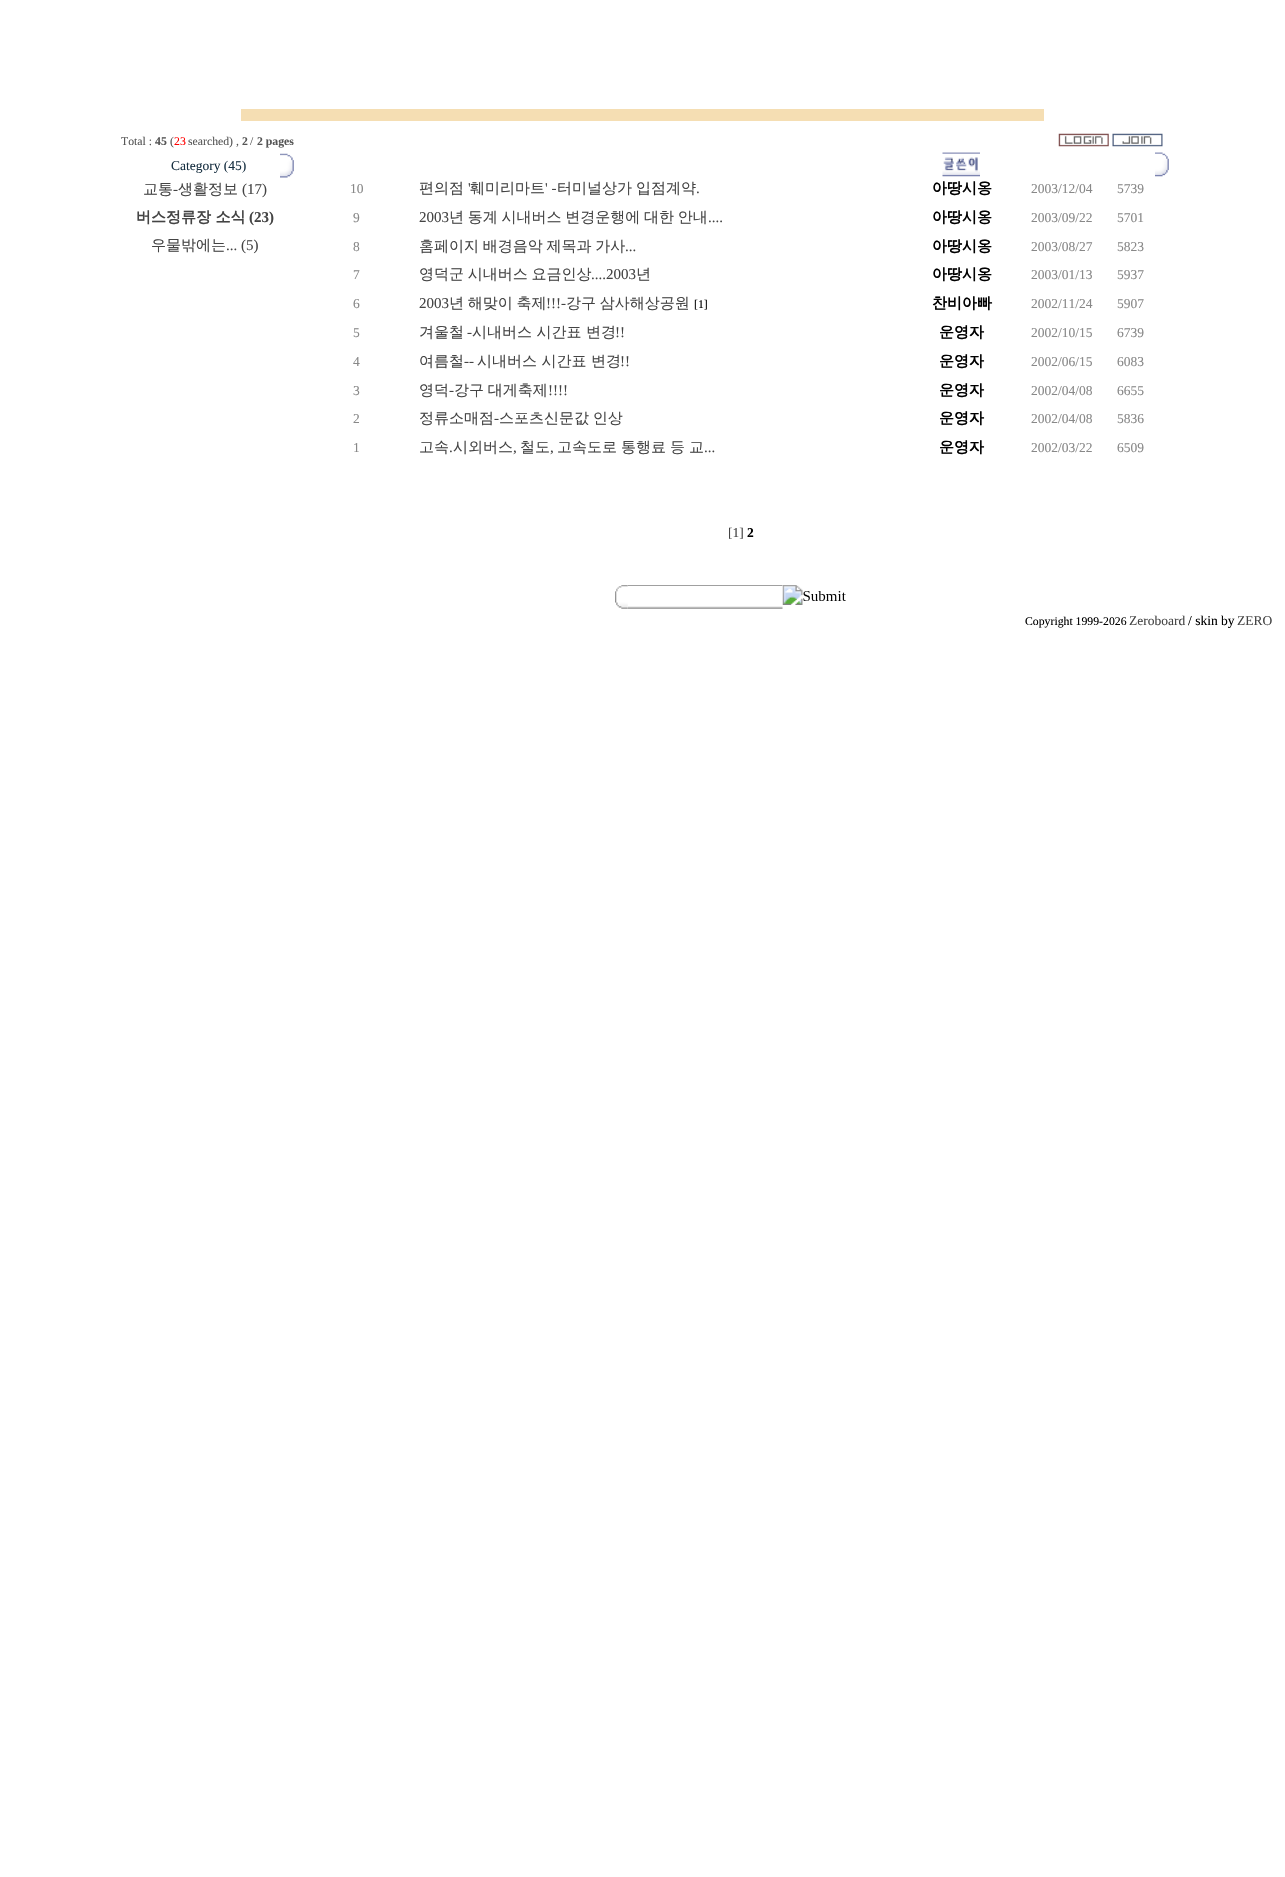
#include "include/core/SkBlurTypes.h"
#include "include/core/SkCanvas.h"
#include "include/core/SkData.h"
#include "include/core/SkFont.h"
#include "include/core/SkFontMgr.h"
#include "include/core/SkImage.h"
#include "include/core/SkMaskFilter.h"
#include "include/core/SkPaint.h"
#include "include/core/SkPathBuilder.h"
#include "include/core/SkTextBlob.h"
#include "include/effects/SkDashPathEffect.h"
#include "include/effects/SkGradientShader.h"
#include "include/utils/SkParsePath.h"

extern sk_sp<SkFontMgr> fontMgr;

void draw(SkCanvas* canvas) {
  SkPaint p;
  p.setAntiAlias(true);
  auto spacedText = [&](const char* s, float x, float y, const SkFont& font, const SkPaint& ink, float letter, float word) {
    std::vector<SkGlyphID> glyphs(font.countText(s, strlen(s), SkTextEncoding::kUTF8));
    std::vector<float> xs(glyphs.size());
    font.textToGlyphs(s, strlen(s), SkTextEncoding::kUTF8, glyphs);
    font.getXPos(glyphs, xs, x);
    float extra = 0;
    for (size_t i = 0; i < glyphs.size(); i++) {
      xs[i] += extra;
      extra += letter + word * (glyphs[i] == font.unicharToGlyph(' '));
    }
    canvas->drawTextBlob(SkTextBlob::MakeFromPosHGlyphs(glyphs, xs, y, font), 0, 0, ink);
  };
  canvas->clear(SK_ColorWHITE);
  p.setColor(SkColorSetRGB(245, 222, 179));
  canvas->drawRect(SkRect::MakeLTRB(241, 109, 1044, 121), p);
  canvas->drawImageRect(SkImages::DeferredFromEncodedData(SkData::MakeFromFileName("images/1.png")), SkRect::MakeLTRB(1058, 133, 1109, 147), SkSamplingOptions());
  canvas->drawImageRect(SkImages::DeferredFromEncodedData(SkData::MakeFromFileName("images/2.png")), SkRect::MakeLTRB(1112, 133, 1163, 147), SkSamplingOptions());
  canvas->drawImageRect(SkImages::DeferredFromEncodedData(SkData::MakeFromFileName("images/3.png")), SkRect::MakeLTRB(280, 153, 294, 178), SkSamplingOptions());
  canvas->drawImageRect(SkImages::DeferredFromEncodedData(SkData::MakeFromFileName("images/4.png")), SkRect::MakeLTRB(942, 152, 980, 177), SkSamplingOptions());
  canvas->drawImageRect(SkImages::DeferredFromEncodedData(SkData::MakeFromFileName("images/5.png")), SkRect::MakeLTRB(1155, 152, 1169, 177), SkSamplingOptions());
  canvas->drawImageRect(SkImages::DeferredFromEncodedData(SkData::MakeFromFileName("images/7.png")), SkRect::MakeLTRB(627, 585, 783, 609), SkSamplingOptions());
  canvas->drawImageRect(SkImages::DeferredFromEncodedData(SkData::MakeFromFileName("images/6.png")), SkRect::MakeLTRB(615, 585, 628, 609), SkSamplingOptions());
  p.setColor(SK_ColorWHITE);
  canvas->drawRect(SkRect::MakeLTRB(628, 586, 783, 606), p);
  canvas->drawImageRect(SkImages::DeferredFromEncodedData(SkData::MakeFromFileName("images/8.png")), SkRect::MakeLTRB(782, 585, 846, 605), SkSamplingOptions());
  SkFont font1(fontMgr->matchFamilyStyle("Liberation Serif", SkFontStyle::Normal()), 11.75f);
  font1.setSubpixel(true);
  p.setColor(SkColorSetRGB(85, 85, 85));
  canvas->drawString("Total :", 121, 145, font1, p);
  SkFont font2(fontMgr->matchFamilyStyle("Liberation Serif", SkFontStyle::Bold()), 11.75f);
  font2.setSubpixel(true);
  canvas->drawString("45", 155, 145, font2, p);
  canvas->drawString("(", 170, 145, font1, p);
  p.setColor(SkColorSetRGB(255, 0, 0));
  canvas->drawString("23", 174, 145, font1, p);
  p.setColor(SkColorSetRGB(85, 85, 85));
  canvas->drawString("searched) ,", 188, 145, font1, p);
  canvas->drawString("2", 242, 145, font2, p);
  canvas->drawString("/", 250, 145, font1, p);
  canvas->drawString("2 pages", 257, 145, font2, p);
  SkFont font3(fontMgr->matchFamilyStyle("Liberation Serif", SkFontStyle::Normal()), 13.5f);
  font3.setSubpixel(true);
  p.setColor(SkColorSetRGB(23, 47, 65));
  canvas->drawString("Category (45)", 171, 170, font3, p);
  SkFont font4(fontMgr->matchFamilyStyle("WenQuanYi Zen Hei", SkFontStyle(500, SkFontStyle::kNormal_Width, SkFontStyle::kUpright_Slant)), 15);
  font4.setSubpixel(true);
  p.setColor(SkColorSetRGB(68, 68, 68));
  canvas->drawString("교통", 143, 194, font4, p);
  SkFont font5(fontMgr->matchFamilyStyle("Liberation Serif", SkFontStyle::Normal()), 15);
  font5.setSubpixel(true);
  canvas->drawString("-", 173, 194, font5, p);
  canvas->drawString("생활정보", 178, 194, font4, p);
  canvas->drawString("(17)", 242, 194, font5, p);
  SkFont font6(fontMgr->matchFamilyStyle("WenQuanYi Zen Hei", SkFontStyle::Bold()), 15);
  font6.setSubpixel(true);
  canvas->drawString("버스정류장 소식", 136, 222, font6, p);
  SkFont font7(fontMgr->matchFamilyStyle("Liberation Serif", SkFontStyle::Bold()), 15);
  font7.setSubpixel(true);
  canvas->drawString("(23)", 249, 222, font7, p);
  canvas->drawString("우물밖에는", 151, 250, font4, p);
  canvas->drawString("... (5)", 226, 250, font5, p);
  p.setColor(SkColorSetRGB(136, 136, 136));
  canvas->drawString("10", 350, 193, font3, p);
  p.setColor(SkColorSetRGB(68, 68, 68));
  canvas->drawString("편의점", 419, 193, font4, p);
  canvas->drawString("'", 468, 193, font5, p);
  canvas->drawString("훼미리마트", 470, 193, font4, p);
  canvas->drawString("' -", 545, 193, font5, p);
  canvas->drawString("터미널상가", 557, 193, font4, p);
  canvas->drawString("입점계약", 636, 193, font4, p);
  canvas->drawString(".", 696, 193, font5, p);
  p.setColor(SK_ColorBLACK);
  canvas->drawString("아땅시옹", 932, 193, font6, p);
  p.setColor(SkColorSetRGB(136, 136, 136));
  canvas->drawString("2003/12/04", 1031, 193, font3, p);
  canvas->drawString("5739", 1117, 193, font3, p);
  canvas->drawString("9", 353, 222, font3, p);
  p.setColor(SkColorSetRGB(68, 68, 68));
  canvas->drawString("2003", 419, 222, font5, p);
  spacedText("년 동계 시내버스 변경운행에 대한 안내", 449, 222, font4, p, 0, -0.75f);
  canvas->drawString("....", 708, 222, font5, p);
  p.setColor(SK_ColorBLACK);
  canvas->drawString("아땅시옹", 932, 222, font6, p);
  p.setColor(SkColorSetRGB(136, 136, 136));
  canvas->drawString("2003/09/22", 1031, 222, font3, p);
  canvas->drawString("5701", 1117, 222, font3, p);
  canvas->drawString("8", 353, 251, font3, p);
  p.setColor(SkColorSetRGB(68, 68, 68));
  spacedText("홈페이지 배경음악 제목과 가사", 419, 251, font4, p, 0, -0.75f);
  canvas->drawString("...", 625, 251, font5, p);
  p.setColor(SK_ColorBLACK);
  canvas->drawString("아땅시옹", 932, 251, font6, p);
  p.setColor(SkColorSetRGB(136, 136, 136));
  canvas->drawString("2003/08/27", 1031, 251, font3, p);
  canvas->drawString("5823", 1117, 251, font3, p);
  canvas->drawString("7", 353, 279, font3, p);
  p.setColor(SkColorSetRGB(68, 68, 68));
  spacedText("영덕군 시내버스 요금인상", 419, 279, font4, p, 0, -0.75f);
  canvas->drawString("....2003", 591, 279, font5, p);
  canvas->drawString("년", 636, 279, font4, p);
  p.setColor(SK_ColorBLACK);
  canvas->drawString("아땅시옹", 932, 279, font6, p);
  p.setColor(SkColorSetRGB(136, 136, 136));
  canvas->drawString("2003/01/13", 1031, 279, font3, p);
  canvas->drawString("5937", 1117, 279, font3, p);
  canvas->drawString("6", 353, 308, font3, p);
  p.setColor(SkColorSetRGB(68, 68, 68));
  canvas->drawString("2003", 419, 308, font5, p);
  spacedText("년 해맞이 축제", 449, 308, font4, p, 0, -0.75f);
  canvas->drawString("!!!-", 546, 308, font5, p);
  spacedText("강구 삼사해상공원", 566, 308, font4, p, 0, -0.75f);
  p.setColor(SK_ColorBLACK);
  canvas->drawString("[1]", 694, 308, font1, p);
  canvas->drawString("찬비아빠", 932, 308, font6, p);
  p.setColor(SkColorSetRGB(136, 136, 136));
  canvas->drawString("2002/11/24", 1031, 308, font3, p);
  canvas->drawString("5907", 1117, 308, font3, p);
  canvas->drawString("5", 353, 337, font3, p);
  p.setColor(SkColorSetRGB(68, 68, 68));
  canvas->drawString("겨울철", 419, 337, font4, p);
  canvas->drawString("-", 467, 337, font5, p);
  canvas->drawString("시내버스 시간표 변경", 472, 337, font4, p);
  canvas->drawString("!!", 615, 337, font5, p);
  p.setColor(SK_ColorBLACK);
  canvas->drawString("운영자", 939, 337, font6, p);
  p.setColor(SkColorSetRGB(136, 136, 136));
  canvas->drawString("2002/10/15", 1031, 337, font3, p);
  canvas->drawString("6739", 1117, 337, font3, p);
  canvas->drawString("4", 353, 366, font3, p);
  p.setColor(SkColorSetRGB(68, 68, 68));
  canvas->drawString("여름철", 419, 366, font4, p);
  canvas->drawString("--", 464, 366, font5, p);
  canvas->drawString("시내버스 시간표 변경", 477, 366, font4, p);
  canvas->drawString("!!", 620, 366, font5, p);
  p.setColor(SK_ColorBLACK);
  canvas->drawString("운영자", 939, 366, font6, p);
  p.setColor(SkColorSetRGB(136, 136, 136));
  canvas->drawString("2002/06/15", 1031, 366, font3, p);
  canvas->drawString("6083", 1117, 366, font3, p);
  canvas->drawString("3", 353, 395, font3, p);
  p.setColor(SkColorSetRGB(68, 68, 68));
  canvas->drawString("영덕", 419, 395, font4, p);
  canvas->drawString("-", 449, 395, font5, p);
  spacedText("강구 대게축제", 454, 395, font4, p, 0, -0.75f);
  canvas->drawString("!!!!", 548, 395, font5, p);
  p.setColor(SK_ColorBLACK);
  canvas->drawString("운영자", 939, 395, font6, p);
  p.setColor(SkColorSetRGB(136, 136, 136));
  canvas->drawString("2002/04/08", 1031, 395, font3, p);
  canvas->drawString("6655", 1117, 395, font3, p);
  canvas->drawString("2", 353, 423, font3, p);
  p.setColor(SkColorSetRGB(68, 68, 68));
  canvas->drawString("정류소매점", 419, 423, font4, p);
  canvas->drawString("-", 494, 423, font5, p);
  spacedText("스포츠신문값 인상", 499, 423, font4, p, 0, -0.75f);
  p.setColor(SK_ColorBLACK);
  canvas->drawString("운영자", 939, 423, font6, p);
  p.setColor(SkColorSetRGB(136, 136, 136));
  canvas->drawString("2002/04/08", 1031, 423, font3, p);
  canvas->drawString("5836", 1117, 423, font3, p);
  canvas->drawString("1", 353, 452, font3, p);
  p.setColor(SkColorSetRGB(68, 68, 68));
  canvas->drawString("고속", 419, 452, font4, p);
  canvas->drawString(".", 449, 452, font5, p);
  canvas->drawString("시외버스", 453, 452, font4, p);
  canvas->drawString(",", 513, 452, font5, p);
  canvas->drawString("철도", 520, 452, font4, p);
  canvas->drawString(",", 550, 452, font5, p);
  spacedText("고속도로 통행료 등 교", 557, 452, font4, p, 0, -0.5f);
  canvas->drawString("...", 704, 452, font5, p);
  p.setColor(SK_ColorBLACK);
  canvas->drawString("운영자", 939, 452, font6, p);
  p.setColor(SkColorSetRGB(136, 136, 136));
  canvas->drawString("2002/03/22", 1031, 452, font3, p);
  canvas->drawString("6509", 1117, 452, font3, p);
  p.setColor(SkColorSetRGB(68, 68, 68));
  canvas->drawString("[1]", 728, 537, font3, p);
  SkFont font8(fontMgr->matchFamilyStyle("Liberation Serif", SkFontStyle::Bold()), 13.5f);
  font8.setSubpixel(true);
  p.setColor(SK_ColorBLACK);
  canvas->drawString("2", 747, 537, font8, p);
  canvas->drawString("Copyright 1999-2026", 1025, 625, font1, p);
  p.setColor(SkColorSetRGB(68, 68, 68));
  canvas->drawString("Zeroboard", 1129, 625, font3, p);
  p.setColor(SK_ColorBLACK);
  canvas->drawString("/ skin by", 1188, 625, font3, p);
  p.setColor(SkColorSetRGB(68, 68, 68));
  canvas->drawString("ZERO", 1237, 625, font3, p);
}
